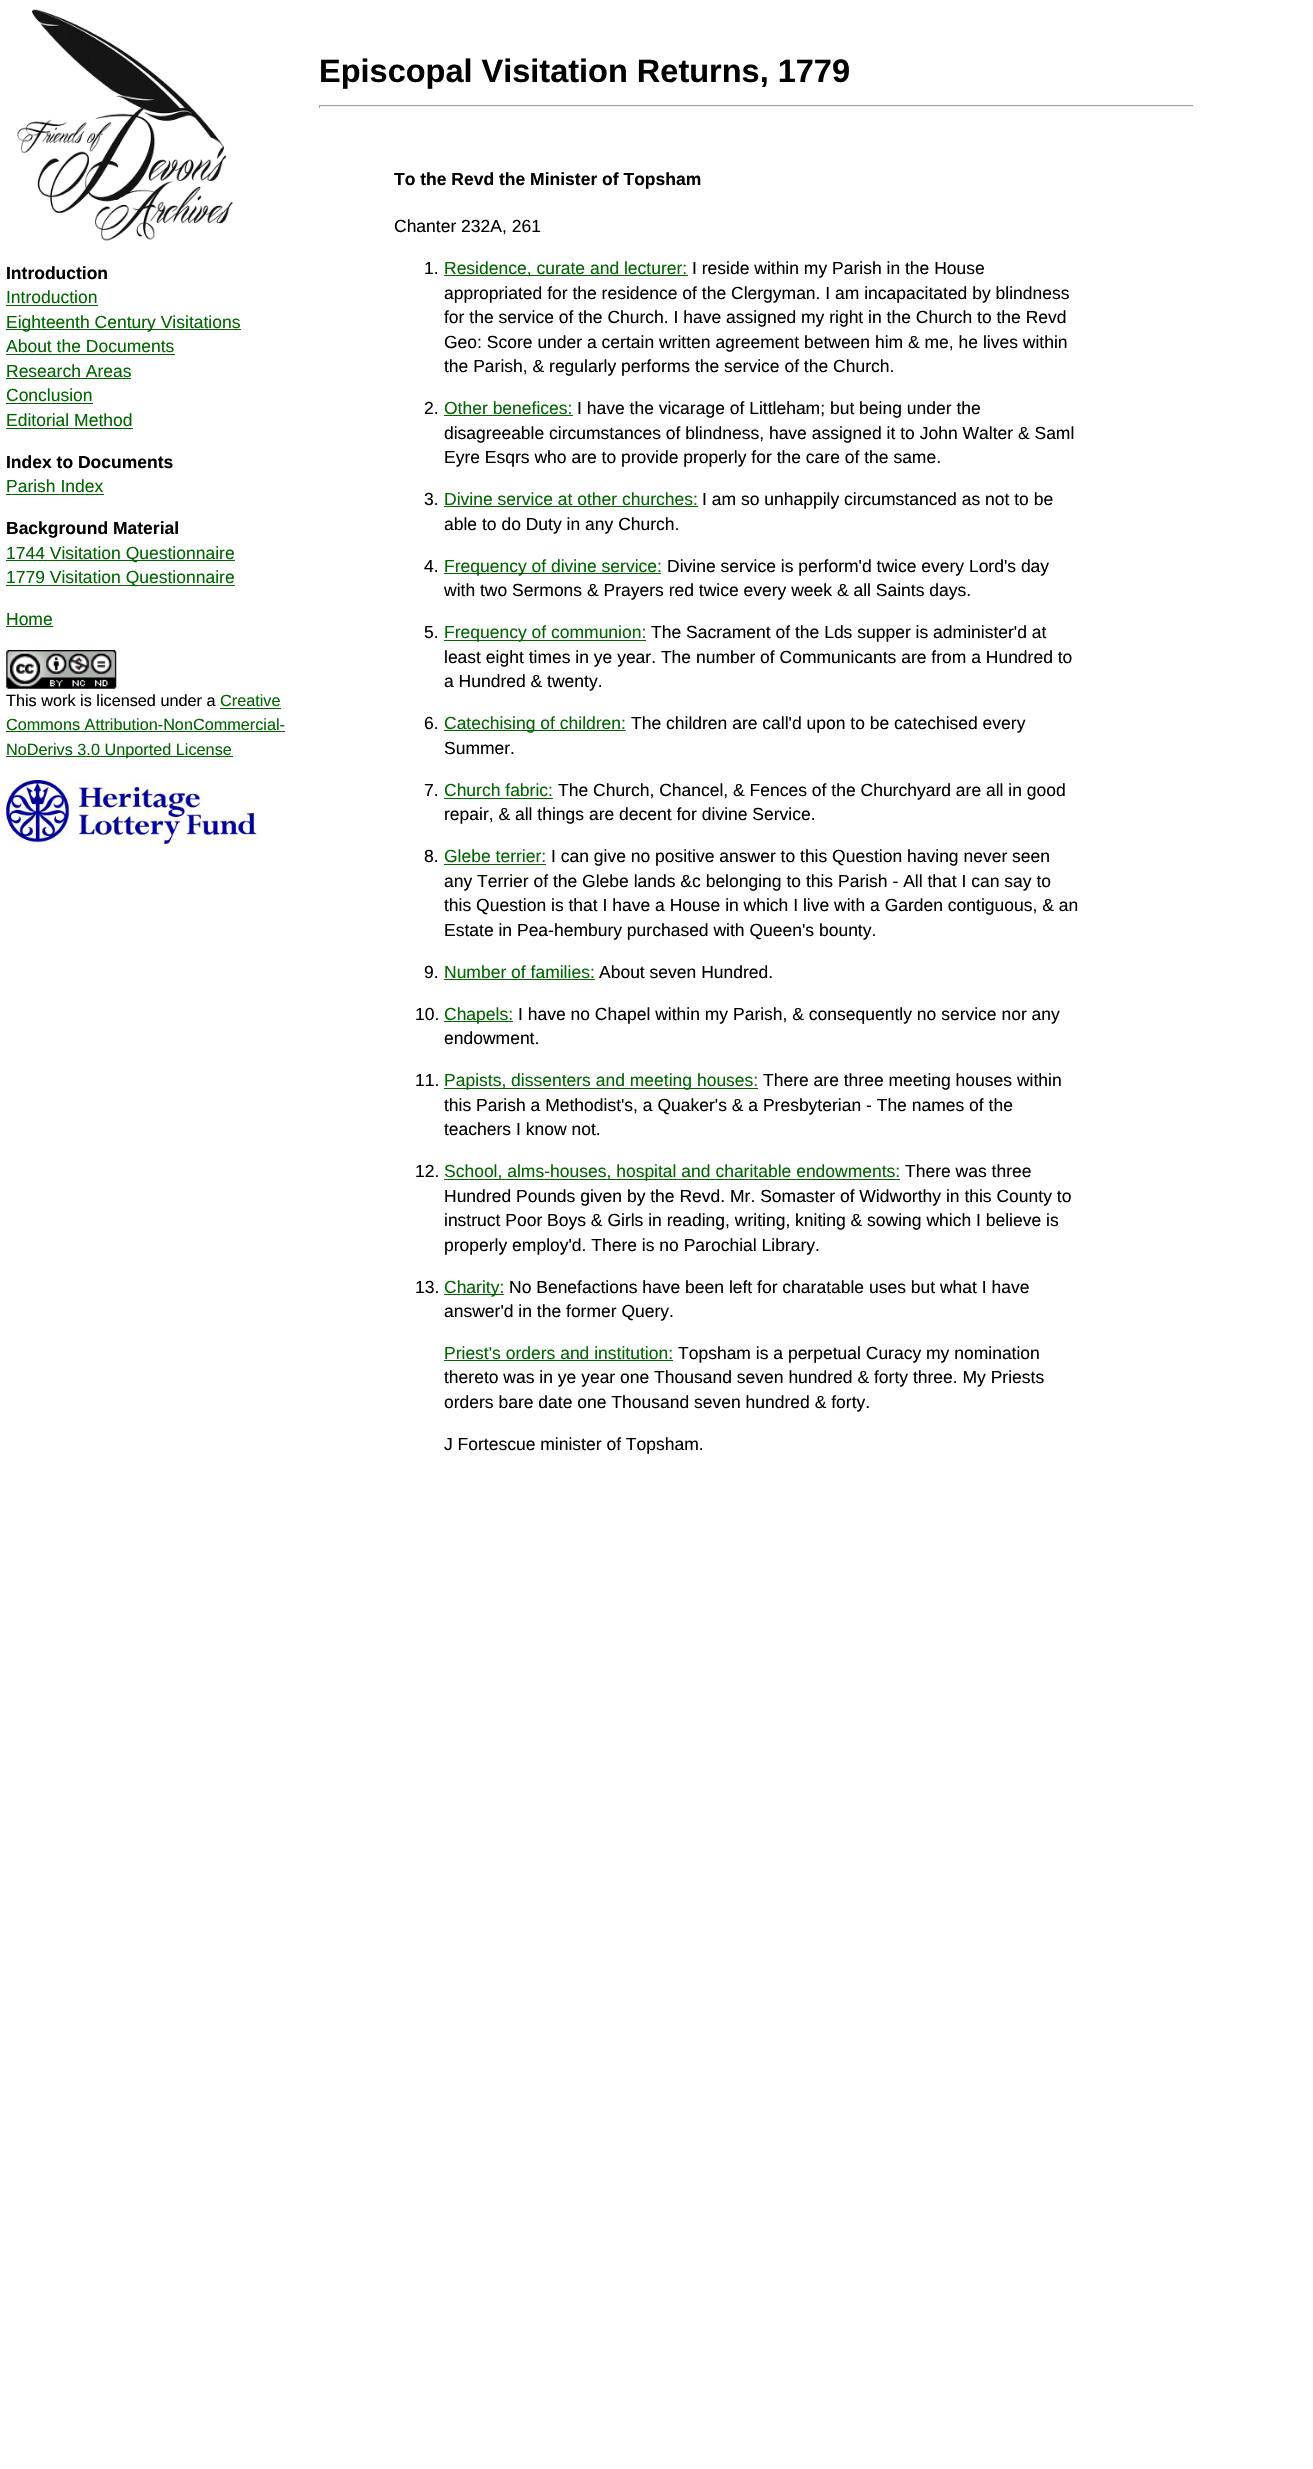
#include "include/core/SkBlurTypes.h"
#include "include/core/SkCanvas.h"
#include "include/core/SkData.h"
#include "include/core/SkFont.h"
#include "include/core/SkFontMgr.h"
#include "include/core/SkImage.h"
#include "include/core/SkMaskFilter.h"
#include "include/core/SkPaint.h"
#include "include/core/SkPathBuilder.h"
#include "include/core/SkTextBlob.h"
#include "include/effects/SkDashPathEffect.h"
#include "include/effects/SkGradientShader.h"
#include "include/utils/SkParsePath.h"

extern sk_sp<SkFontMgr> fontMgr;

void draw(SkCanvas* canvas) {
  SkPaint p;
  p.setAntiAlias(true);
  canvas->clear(SK_ColorWHITE);
  p.setColor(SkColorSetRGB(159, 159, 159));
  canvas->drawRect(SkRect::MakeLTRB(319, 105, 1194, 106), p);
  p.setColor(SkColorSetRGB(238, 238, 238));
  canvas->drawRect(SkRect::MakeLTRB(1193, 105, 1194, 108), p);
  canvas->drawRect(SkRect::MakeLTRB(319, 106, 1194, 107), p);
  p.setColor(SkColorSetRGB(159, 159, 159));
  canvas->drawRect(SkRect::MakeLTRB(319, 105, 320, 108), p);
  canvas->drawImageRect(SkImages::DeferredFromEncodedData(SkData::MakeFromFileName("images/1.png")), SkRect::MakeLTRB(17, 9, 233, 241), SkSamplingOptions());
  p.setColor(SkColorSetRGB(0, 100, 0));
  canvas->drawRect(SkRect::MakeLTRB(6, 305, 98, 306), p);
  canvas->drawRect(SkRect::MakeLTRB(6, 329, 241, 330), p);
  canvas->drawRect(SkRect::MakeLTRB(6, 354, 175, 355), p);
  canvas->drawRect(SkRect::MakeLTRB(6, 378, 131, 379), p);
  canvas->drawRect(SkRect::MakeLTRB(6, 403, 93, 404), p);
  canvas->drawRect(SkRect::MakeLTRB(6, 428, 133, 429), p);
  canvas->drawRect(SkRect::MakeLTRB(6, 494, 104, 495), p);
  canvas->drawRect(SkRect::MakeLTRB(6, 560, 235, 561), p);
  canvas->drawRect(SkRect::MakeLTRB(6, 585, 235, 586), p);
  canvas->drawRect(SkRect::MakeLTRB(6, 626, 53, 627), p);
  canvas->drawImageRect(SkImages::DeferredFromEncodedData(SkData::MakeFromFileName("images/2.png")), SkRect::MakeLTRB(6, 650, 117, 689), SkSamplingOptions());
  canvas->drawRect(SkRect::MakeLTRB(220, 708, 281, 709), p);
  canvas->drawRect(SkRect::MakeLTRB(6, 731, 285, 732), p);
  canvas->drawRect(SkRect::MakeLTRB(6, 756, 233, 757), p);
  canvas->drawImageRect(SkImages::DeferredFromEncodedData(SkData::MakeFromFileName("images/3.png")), SkRect::MakeLTRB(6, 780, 257, 844), SkSamplingOptions());
  canvas->drawRect(SkRect::MakeLTRB(444, 275, 688, 276), p);
  canvas->drawRect(SkRect::MakeLTRB(444, 415, 573, 416), p);
  canvas->drawRect(SkRect::MakeLTRB(444, 506, 698, 507), p);
  canvas->drawRect(SkRect::MakeLTRB(444, 573, 661, 574), p);
  canvas->drawRect(SkRect::MakeLTRB(444, 640, 646, 641), p);
  canvas->drawRect(SkRect::MakeLTRB(444, 730, 626, 731), p);
  canvas->drawRect(SkRect::MakeLTRB(444, 798, 553, 799), p);
  canvas->drawRect(SkRect::MakeLTRB(444, 864, 546, 865), p);
  canvas->drawRect(SkRect::MakeLTRB(444, 979, 595, 980), p);
  canvas->drawRect(SkRect::MakeLTRB(444, 1021, 513, 1022), p);
  canvas->drawRect(SkRect::MakeLTRB(444, 1088, 758, 1089), p);
  canvas->drawRect(SkRect::MakeLTRB(444, 1179, 900, 1180), p);
  canvas->drawRect(SkRect::MakeLTRB(444, 1294, 504, 1295), p);
  canvas->drawRect(SkRect::MakeLTRB(444, 1360, 673, 1361), p);
  SkFont font1(fontMgr->matchFamilyStyle("Liberation Sans", SkFontStyle::Bold()), 32.5f);
  font1.setSubpixel(true);
  p.setColor(SK_ColorBLACK);
  canvas->drawString("Episcopal Visitation Returns, 1779", 319, 82, font1, p);
  SkFont font2(fontMgr->matchFamilyStyle("Liberation Sans", SkFontStyle::Bold()), 17.5f);
  font2.setSubpixel(true);
  canvas->drawString("Introduction", 6, 279, font2, p);
  SkFont font3(fontMgr->matchFamilyStyle("Liberation Sans", SkFontStyle::Normal()), 17.5f);
  font3.setSubpixel(true);
  p.setColor(SkColorSetRGB(0, 100, 0));
  canvas->drawString("Introduction", 6, 303, font3, p);
  canvas->drawString("Eighteenth Century Visitations", 6, 328, font3, p);
  canvas->drawString("About the Documents", 6, 352, font3, p);
  canvas->drawString("Research Areas", 6, 377, font3, p);
  canvas->drawString("Conclusion", 6, 401, font3, p);
  canvas->drawString("Editorial Method", 6, 426, font3, p);
  p.setColor(SK_ColorBLACK);
  canvas->drawString("Index to Documents", 6, 468, font2, p);
  p.setColor(SkColorSetRGB(0, 100, 0));
  canvas->drawString("Parish Index", 6, 492, font3, p);
  p.setColor(SK_ColorBLACK);
  canvas->drawString("Background Material", 6, 534, font2, p);
  p.setColor(SkColorSetRGB(0, 100, 0));
  canvas->drawString("1744 Visitation Questionnaire", 6, 559, font3, p);
  canvas->drawString("1779 Visitation Questionnaire", 6, 583, font3, p);
  canvas->drawString("Home", 6, 625, font3, p);
  SkFont font4(fontMgr->matchFamilyStyle("Liberation Sans", SkFontStyle::Normal()), 16.25f);
  font4.setSubpixel(true);
  p.setColor(SK_ColorBLACK);
  canvas->drawString("This work is licensed under a", 6, 706, font4, p);
  p.setColor(SkColorSetRGB(0, 100, 0));
  canvas->drawString("Creative", 220, 706, font4, p);
  canvas->drawString("Commons Attribution-NonCommercial-", 6, 730, font4, p);
  canvas->drawString("NoDerivs 3.0 Unported License", 6, 755, font4, p);
  p.setColor(SK_ColorBLACK);
  canvas->drawString("To the Revd the Minister of Topsham", 394, 185, font2, p);
  canvas->drawString("Chanter 232A, 261", 394, 232, font3, p);
  canvas->drawString("1.", 424, 274, font3, p);
  p.setColor(SkColorSetRGB(0, 100, 0));
  canvas->drawString("Residence, curate and lecturer:", 444, 274, font3, p);
  p.setColor(SK_ColorBLACK);
  canvas->drawString("I reside within my Parish in the House", 692, 274, font3, p);
  canvas->drawString("appropriated for the residence of the Clergyman. I am incapacitated by blindness", 444, 299, font3, p);
  canvas->drawString("for the service of the Church. I have assigned my right in the Church to the Revd", 444, 323, font3, p);
  canvas->drawString("Geo: Score under a certain written agreement between him & me, he lives within", 444, 348, font3, p);
  canvas->drawString("the Parish, & regularly performs the service of the Church.", 444, 372, font3, p);
  canvas->drawString("2.", 424, 414, font3, p);
  p.setColor(SkColorSetRGB(0, 100, 0));
  canvas->drawString("Other benefices:", 444, 414, font3, p);
  p.setColor(SK_ColorBLACK);
  canvas->drawString("I have the vicarage of Littleham; but being under the", 577, 414, font3, p);
  canvas->drawString("disagreeable circumstances of blindness, have assigned it to John Walter & Saml", 444, 439, font3, p);
  canvas->drawString("Eyre Esqrs who are to provide properly for the care of the same.", 444, 463, font3, p);
  canvas->drawString("3.", 424, 505, font3, p);
  p.setColor(SkColorSetRGB(0, 100, 0));
  canvas->drawString("Divine service at other churches:", 444, 505, font3, p);
  p.setColor(SK_ColorBLACK);
  canvas->drawString("I am so unhappily circumstanced as not to be", 702, 505, font3, p);
  canvas->drawString("able to do Duty in any Church.", 444, 530, font3, p);
  canvas->drawString("4.", 424, 572, font3, p);
  p.setColor(SkColorSetRGB(0, 100, 0));
  canvas->drawString("Frequency of divine service:", 444, 572, font3, p);
  p.setColor(SK_ColorBLACK);
  canvas->drawString("Divine service is perform'd twice every Lord's day", 667, 572, font3, p);
  canvas->drawString("with two Sermons & Prayers red twice every week & all Saints days.", 444, 596, font3, p);
  canvas->drawString("5.", 424, 638, font3, p);
  p.setColor(SkColorSetRGB(0, 100, 0));
  canvas->drawString("Frequency of communion:", 444, 638, font3, p);
  p.setColor(SK_ColorBLACK);
  canvas->drawString("The Sacrament of the Lds supper is administer'd at", 651, 638, font3, p);
  canvas->drawString("least eight times in ye year. The number of Communicants are from a Hundred to", 444, 663, font3, p);
  canvas->drawString("a Hundred & twenty.", 444, 687, font3, p);
  canvas->drawString("6.", 424, 729, font3, p);
  p.setColor(SkColorSetRGB(0, 100, 0));
  canvas->drawString("Catechising of children:", 444, 729, font3, p);
  p.setColor(SK_ColorBLACK);
  canvas->drawString("The children are call'd upon to be catechised every", 631, 729, font3, p);
  canvas->drawString("Summer.", 444, 754, font3, p);
  canvas->drawString("7.", 424, 796, font3, p);
  p.setColor(SkColorSetRGB(0, 100, 0));
  canvas->drawString("Church fabric:", 444, 796, font3, p);
  p.setColor(SK_ColorBLACK);
  canvas->drawString("The Church, Chancel, & Fences of the Churchyard are all in good", 558, 796, font3, p);
  canvas->drawString("repair, & all things are decent for divine Service.", 444, 820, font3, p);
  canvas->drawString("8.", 424, 862, font3, p);
  p.setColor(SkColorSetRGB(0, 100, 0));
  canvas->drawString("Glebe terrier:", 444, 862, font3, p);
  p.setColor(SK_ColorBLACK);
  canvas->drawString("I can give no positive answer to this Question having never seen", 551, 862, font3, p);
  canvas->drawString("any Terrier of the Glebe lands &c belonging to this Parish - All that I can say to", 444, 887, font3, p);
  canvas->drawString("this Question is that I have a House in which I live with a Garden contiguous, & an", 444, 911, font3, p);
  canvas->drawString("Estate in Pea-hembury purchased with Queen's bounty.", 444, 936, font3, p);
  canvas->drawString("9.", 424, 978, font3, p);
  p.setColor(SkColorSetRGB(0, 100, 0));
  canvas->drawString("Number of families:", 444, 978, font3, p);
  p.setColor(SK_ColorBLACK);
  canvas->drawString("About seven Hundred.", 599, 978, font3, p);
  canvas->drawString("10.", 415, 1020, font3, p);
  p.setColor(SkColorSetRGB(0, 100, 0));
  canvas->drawString("Chapels:", 444, 1020, font3, p);
  p.setColor(SK_ColorBLACK);
  canvas->drawString("I have no Chapel within my Parish, & consequently no service nor any", 518, 1020, font3, p);
  canvas->drawString("endowment.", 444, 1044, font3, p);
  canvas->drawString("11.", 415, 1086, font3, p);
  p.setColor(SkColorSetRGB(0, 100, 0));
  canvas->drawString("Papists, dissenters and meeting houses:", 444, 1086, font3, p);
  p.setColor(SK_ColorBLACK);
  canvas->drawString("There are three meeting houses within", 763, 1086, font3, p);
  canvas->drawString("this Parish a Methodist's, a Quaker's & a Presbyterian - The names of the", 444, 1111, font3, p);
  canvas->drawString("teachers I know not.", 444, 1135, font3, p);
  canvas->drawString("12.", 415, 1177, font3, p);
  p.setColor(SkColorSetRGB(0, 100, 0));
  canvas->drawString("School, alms-houses, hospital and charitable endowments:", 444, 1177, font3, p);
  p.setColor(SK_ColorBLACK);
  canvas->drawString("There was three", 905, 1177, font3, p);
  canvas->drawString("Hundred Pounds given by the Revd. Mr. Somaster of Widworthy in this County to", 444, 1202, font3, p);
  canvas->drawString("instruct Poor Boys & Girls in reading, writing, kniting & sowing which I believe is", 444, 1226, font3, p);
  canvas->drawString("properly employ'd. There is no Parochial Library.", 444, 1251, font3, p);
  canvas->drawString("13.", 415, 1293, font3, p);
  p.setColor(SkColorSetRGB(0, 100, 0));
  canvas->drawString("Charity:", 444, 1293, font3, p);
  p.setColor(SK_ColorBLACK);
  canvas->drawString("No Benefactions have been left for charatable uses but what I have", 509, 1293, font3, p);
  canvas->drawString("answer'd in the former Query.", 444, 1317, font3, p);
  p.setColor(SkColorSetRGB(0, 100, 0));
  canvas->drawString("Priest's orders and institution:", 444, 1359, font3, p);
  p.setColor(SK_ColorBLACK);
  canvas->drawString("Topsham is a perpetual Curacy my nomination", 678, 1359, font3, p);
  canvas->drawString("thereto was in ye year one Thousand seven hundred & forty three. My Priests", 444, 1383, font3, p);
  canvas->drawString("orders bare date one Thousand seven hundred & forty.", 444, 1408, font3, p);
  canvas->drawString("J Fortescue minister of Topsham.", 444, 1450, font3, p);
}
